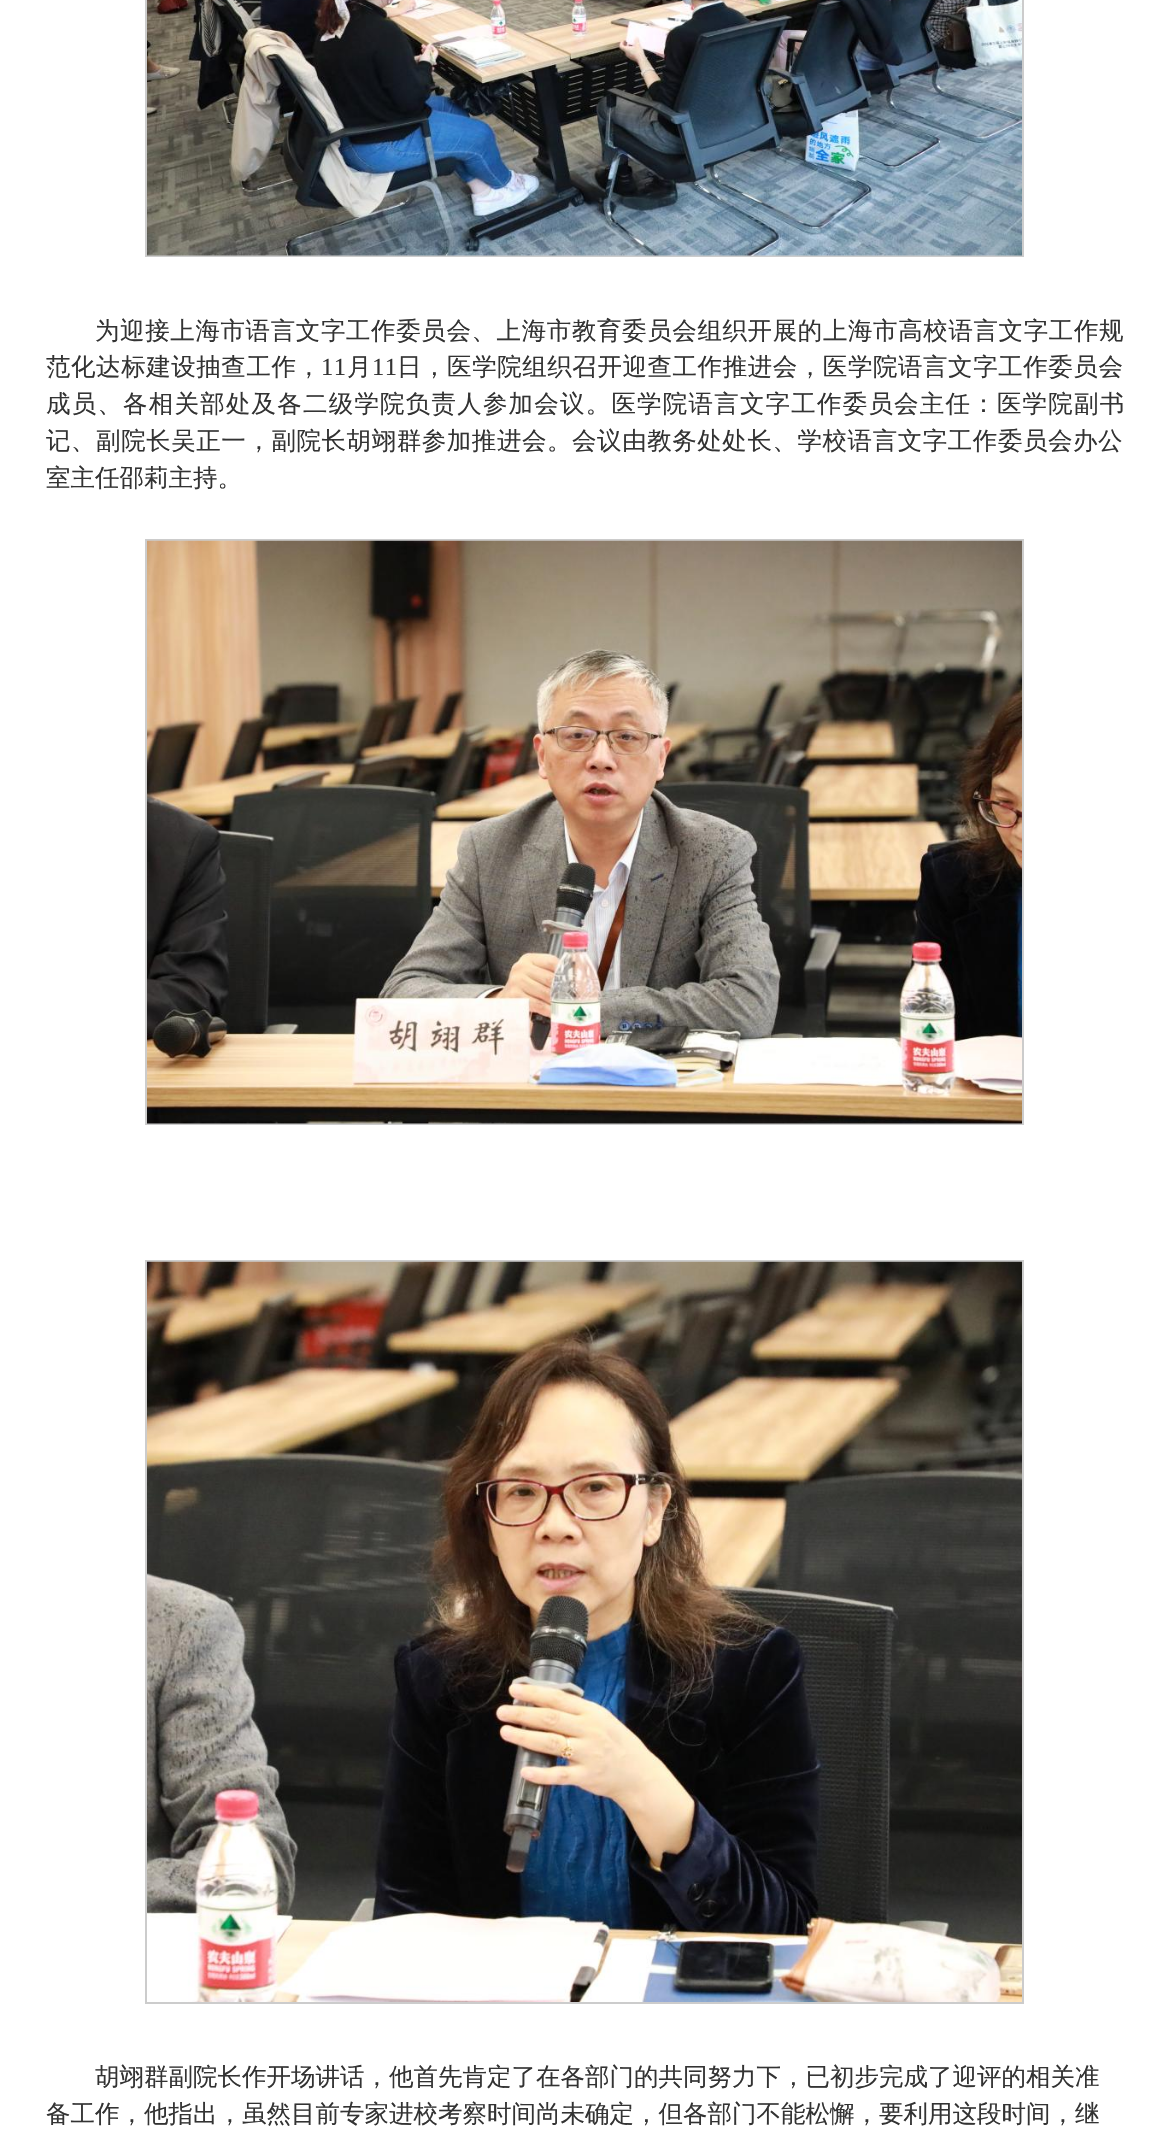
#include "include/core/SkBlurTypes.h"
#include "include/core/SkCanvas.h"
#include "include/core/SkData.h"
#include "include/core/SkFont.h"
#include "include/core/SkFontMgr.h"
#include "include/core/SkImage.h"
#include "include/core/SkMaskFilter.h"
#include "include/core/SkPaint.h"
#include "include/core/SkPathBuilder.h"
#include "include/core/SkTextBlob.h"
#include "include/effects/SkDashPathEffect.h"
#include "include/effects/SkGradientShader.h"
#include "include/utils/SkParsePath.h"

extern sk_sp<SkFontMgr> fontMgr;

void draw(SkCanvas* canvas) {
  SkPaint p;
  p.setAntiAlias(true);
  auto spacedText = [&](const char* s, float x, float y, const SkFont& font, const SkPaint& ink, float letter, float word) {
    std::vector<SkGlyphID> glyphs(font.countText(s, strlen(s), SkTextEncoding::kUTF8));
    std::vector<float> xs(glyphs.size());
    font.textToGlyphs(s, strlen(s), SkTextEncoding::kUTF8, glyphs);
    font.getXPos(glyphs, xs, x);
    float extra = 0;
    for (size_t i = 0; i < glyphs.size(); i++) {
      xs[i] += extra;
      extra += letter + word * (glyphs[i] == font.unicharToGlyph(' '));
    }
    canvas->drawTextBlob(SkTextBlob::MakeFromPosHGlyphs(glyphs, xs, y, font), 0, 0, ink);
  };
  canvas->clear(SK_ColorWHITE);
  p.setStyle(SkPaint::kStroke_Style);
  p.setStrokeWidth(2);
  p.setColor(SkColorSetRGB(204, 204, 204));
  canvas->drawRect(SkRect::MakeLTRB(146, -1, 1023, 256), p);
  canvas->drawImageRect(SkImages::DeferredFromEncodedData(SkData::MakeFromFileName("images/1.png")), SkRect::MakeLTRB(147, 0, 1022, 256), SkSamplingOptions());
  canvas->drawRect(SkRect::MakeLTRB(146, 540, 1023, 1124), p);
  canvas->drawImageRect(SkImages::DeferredFromEncodedData(SkData::MakeFromFileName("images/2.png")), SkRect::MakeLTRB(147, 540, 1022, 1124), SkSamplingOptions());
  canvas->drawRect(SkRect::MakeLTRB(146, 1261, 1023, 2003), p);
  canvas->drawImageRect(SkImages::DeferredFromEncodedData(SkData::MakeFromFileName("images/3.png")), SkRect::MakeLTRB(147, 1261, 1022, 2002), SkSamplingOptions());
  SkFont font1(fontMgr->matchFamilyStyle("WenQuanYi Zen Hei", SkFontStyle(500, SkFontStyle::kNormal_Width, SkFontStyle::kUpright_Slant)), 24.5f);
  font1.setSubpixel(true);
  p.setStyle(SkPaint::kFill_Style);
  p.setColor(SkColorSetRGB(51, 51, 51));
  spacedText("为迎接上海市语言文字工作委员会、上海市教育委员会组织开展的上海市高校语言文字工作规", 95, 339, font1, p, 0.6f, 0);
  spacedText("范化达标建设抽查工作，", 46, 375, font1, p, 0.55f, 0);
  SkFont font2(fontMgr->matchFamilyStyle("Liberation Serif", SkFontStyle::Normal()), 24.5f);
  font2.setSubpixel(true);
  spacedText("11", 321, 375, font2, p, 0.55f, 0);
  spacedText("月", 347, 375, font1, p, 0.55f, 0);
  spacedText("11", 372, 375, font2, p, 0.55f, 0);
  spacedText("日，医学院组织召开迎查工作推进会，医学院语言文字工作委员会", 397, 375, font1, p, 0.55f, 0);
  spacedText("成员、各相关部处及各二级学院负责人参加会议。医学院语言文字工作委员会主任：医学院副书", 46, 412, font1, p, 1.2f, 0);
  spacedText("记、副院长吴正一，副院长胡翊群参加推进会。会议由教务处处长、学校语言文字工作委员会办公", 46, 449, font1, p, 0.55f, 0);
  canvas->drawString("室主任邵莉主持。", 46, 486, font1, p);
  canvas->drawString("胡翊群副院长作开场讲话，他首先肯定了在各部门的共同努力下，已初步完成了迎评的相关准", 95, 2085, font1, p);
  canvas->drawString("备工作，他指出，虽然目前专家进校考察时间尚未确定，但各部门不能松懈，要利用这段时间，继", 46, 2122, font1, p);
}
